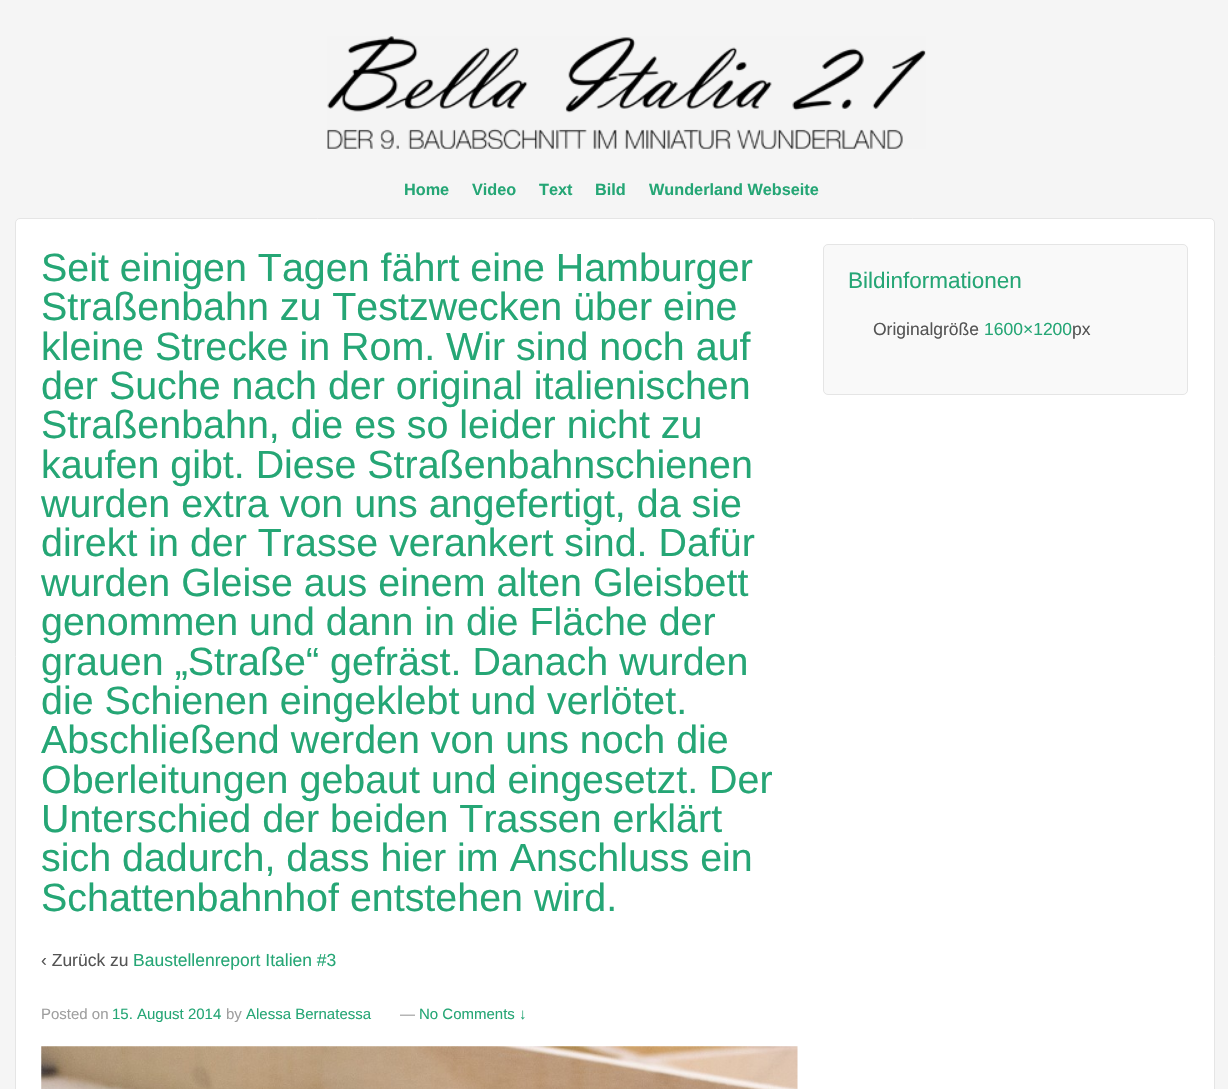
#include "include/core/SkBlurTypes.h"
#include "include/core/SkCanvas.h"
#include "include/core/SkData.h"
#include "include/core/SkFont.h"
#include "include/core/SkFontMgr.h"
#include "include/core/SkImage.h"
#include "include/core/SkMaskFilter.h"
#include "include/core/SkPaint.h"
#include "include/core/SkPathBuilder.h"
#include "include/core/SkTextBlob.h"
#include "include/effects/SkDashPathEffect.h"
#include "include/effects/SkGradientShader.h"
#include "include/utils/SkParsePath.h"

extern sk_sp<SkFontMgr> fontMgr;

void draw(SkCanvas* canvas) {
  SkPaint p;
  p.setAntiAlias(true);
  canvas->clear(SkColorSetRGB(245, 245, 245));
  canvas->drawImageRect(SkImages::DeferredFromEncodedData(SkData::MakeFromFileName("images/1.png")), SkRect::MakeLTRB(327, 36, 926, 149), SkSamplingOptions());
  p.setColor(SK_ColorWHITE);
  canvas->drawRoundRect(SkRect::MakeLTRB(15.5f, 218.5f, 1214.5f, 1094.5f), 4.5f, 4.5f, p);
  p.setStyle(SkPaint::kStroke_Style);
  p.setStrokeWidth(1);
  p.setColor(SkColorSetRGB(229, 229, 229));
  canvas->drawRoundRect(SkRect::MakeLTRB(15.5f, 218.5f, 1214.5f, 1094.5f), 4.5f, 4.5f, p);
  canvas->drawImageRect(SkImages::DeferredFromEncodedData(SkData::MakeFromFileName("images/2.png")), SkRect::MakeLTRB(41, 1046, 798, 1089), SkSamplingOptions());
  p.setStyle(SkPaint::kFill_Style);
  p.setColor(SkColorSetRGB(249, 249, 249));
  canvas->drawRoundRect(SkRect::MakeLTRB(823.5f, 244.5f, 1187.5f, 394.5f), 4.5f, 4.5f, p);
  p.setStyle(SkPaint::kStroke_Style);
  p.setColor(SkColorSetRGB(229, 229, 229));
  canvas->drawRoundRect(SkRect::MakeLTRB(823.5f, 244.5f, 1187.5f, 394.5f), 4.5f, 4.5f, p);
  SkFont font1(fontMgr->matchFamilyStyle("Liberation Sans", SkFontStyle::Bold()), 16.25f);
  font1.setSubpixel(true);
  p.setStyle(SkPaint::kFill_Style);
  p.setColor(SkColorSetRGB(37, 166, 117));
  canvas->drawString("Home", 404, 195, font1, p);
  canvas->drawString("Video", 472, 195, font1, p);
  canvas->drawString("Text", 539, 195, font1, p);
  canvas->drawString("Bild", 595, 195, font1, p);
  canvas->drawString("Wunderland Webseite", 649, 195, font1, p);
  SkFont font2(fontMgr->matchFamilyStyle("Liberation Sans", SkFontStyle::Normal()), 39.4f);
  font2.setSubpixel(true);
  canvas->drawString("Seit einigen Tagen fährt eine Hamburger", 41, 281, font2, p);
  canvas->drawString("Straßenbahn zu Testzwecken über eine", 41, 320, font2, p);
  canvas->drawString("kleine Strecke in Rom. Wir sind noch auf", 41, 360, font2, p);
  canvas->drawString("der Suche nach der original italienischen", 41, 399, font2, p);
  canvas->drawString("Straßenbahn, die es so leider nicht zu", 41, 438, font2, p);
  canvas->drawString("kaufen gibt. Diese Straßenbahnschienen", 41, 478, font2, p);
  canvas->drawString("wurden extra von uns angefertigt, da sie", 41, 517, font2, p);
  canvas->drawString("direkt in der Trasse verankert sind. Dafür", 41, 556, font2, p);
  canvas->drawString("wurden Gleise aus einem alten Gleisbett", 41, 596, font2, p);
  canvas->drawString("genommen und dann in die Fläche der", 41, 635, font2, p);
  canvas->drawString("grauen „Straße“ gefräst. Danach wurden", 41, 675, font2, p);
  canvas->drawString("die Schienen eingeklebt und verlötet.", 41, 714, font2, p);
  canvas->drawString("Abschließend werden von uns noch die", 41, 753, font2, p);
  canvas->drawString("Oberleitungen gebaut und eingesetzt. Der", 41, 793, font2, p);
  canvas->drawString("Unterschied der beiden Trassen erklärt", 41, 832, font2, p);
  canvas->drawString("sich dadurch, dass hier im Anschluss ein", 41, 871, font2, p);
  canvas->drawString("Schattenbahnhof entstehen wird.", 41, 911, font2, p);
  SkFont font3(fontMgr->matchFamilyStyle("Liberation Sans", SkFontStyle::Normal()), 17.5f);
  font3.setSubpixel(true);
  p.setColor(SkColorSetRGB(85, 85, 85));
  canvas->drawString("‹ Zurück zu", 41, 966, font3, p);
  p.setColor(SkColorSetRGB(37, 166, 117));
  canvas->drawString("Baustellenreport Italien #3", 133, 966, font3, p);
  SkFont font4(fontMgr->matchFamilyStyle("Liberation Sans", SkFontStyle::Normal()), 15);
  font4.setSubpixel(true);
  p.setColor(SkColorSetRGB(159, 159, 159));
  canvas->drawString("Posted on", 41, 1019, font4, p);
  p.setColor(SkColorSetRGB(37, 166, 117));
  canvas->drawString("15. August 2014", 112, 1019, font4, p);
  p.setColor(SkColorSetRGB(159, 159, 159));
  canvas->drawString("by", 226, 1019, font4, p);
  p.setColor(SkColorSetRGB(37, 166, 117));
  canvas->drawString("Alessa Bernatessa", 246, 1019, font4, p);
  p.setColor(SkColorSetRGB(159, 159, 159));
  canvas->drawString("—", 400, 1019, font4, p);
  p.setColor(SkColorSetRGB(37, 166, 117));
  canvas->drawString("No Comments ↓", 419, 1019, font4, p);
  SkFont font5(fontMgr->matchFamilyStyle("Liberation Sans", SkFontStyle::Normal()), 22.5f);
  font5.setSubpixel(true);
  canvas->drawString("Bildinformationen", 848, 288, font5, p);
  p.setColor(SkColorSetRGB(85, 85, 85));
  canvas->drawString("Originalgröße", 873, 335, font3, p);
  p.setColor(SkColorSetRGB(37, 166, 117));
  canvas->drawString("1600×1200", 984, 335, font3, p);
  p.setColor(SkColorSetRGB(85, 85, 85));
  canvas->drawString("px", 1072, 335, font3, p);
}
